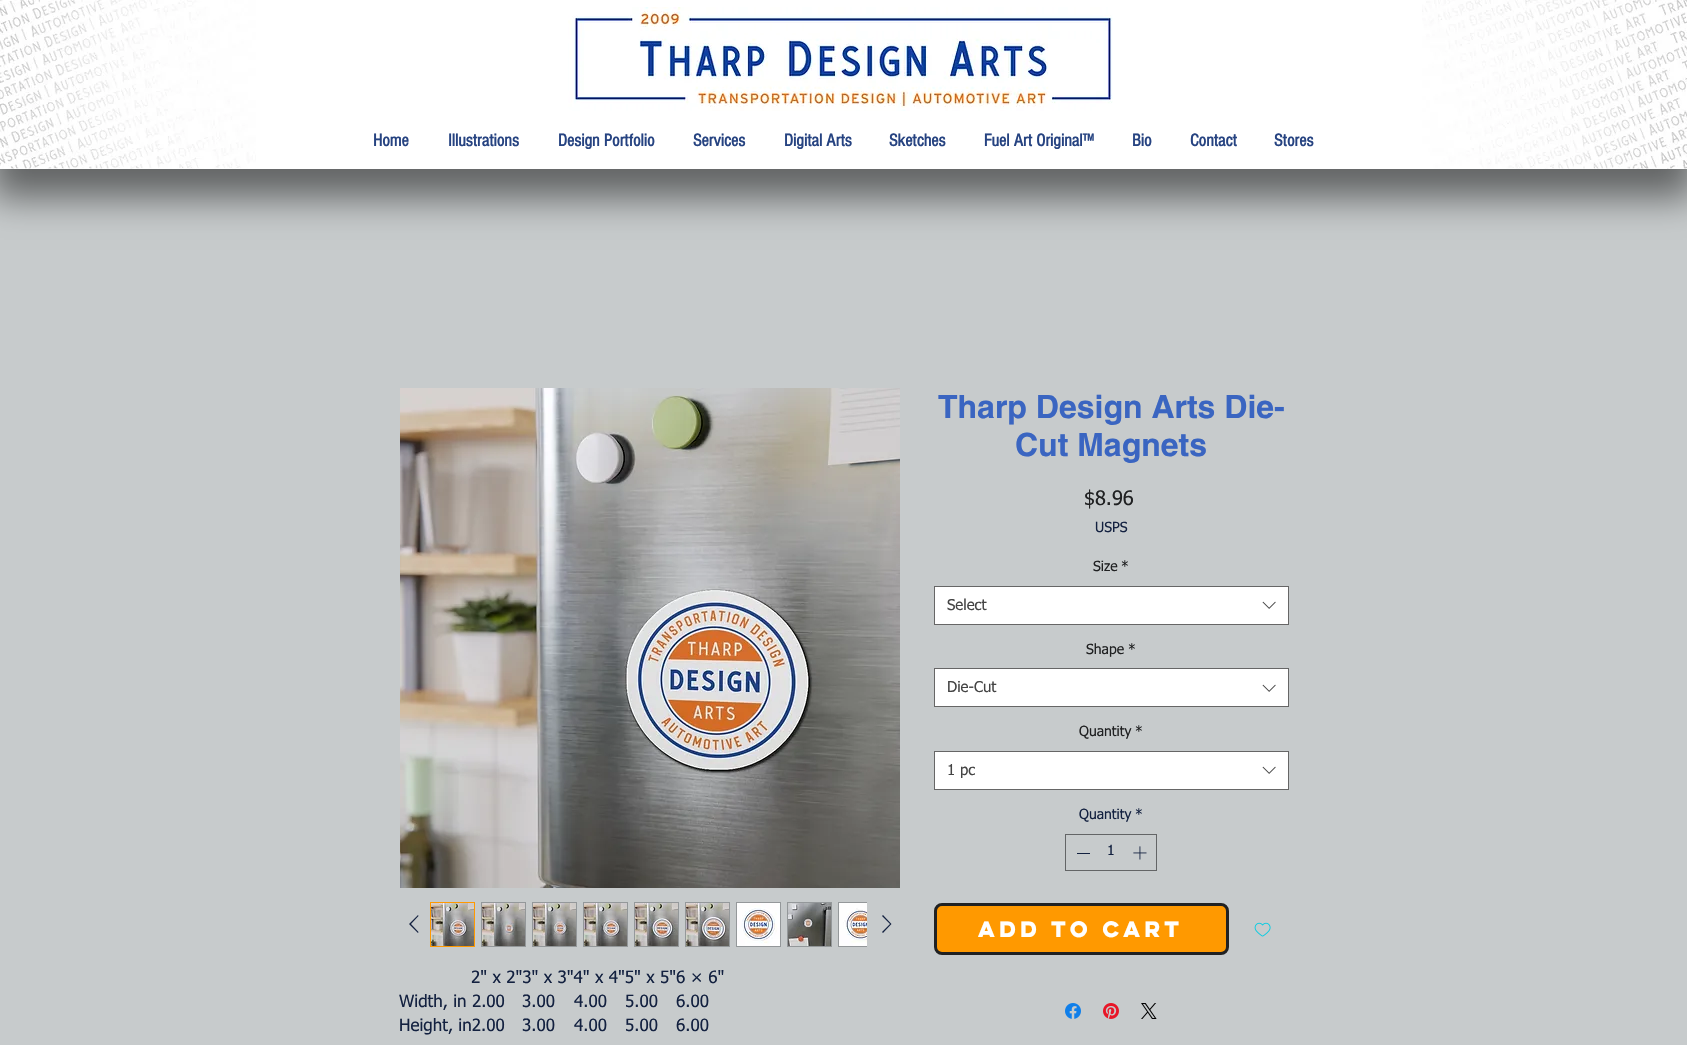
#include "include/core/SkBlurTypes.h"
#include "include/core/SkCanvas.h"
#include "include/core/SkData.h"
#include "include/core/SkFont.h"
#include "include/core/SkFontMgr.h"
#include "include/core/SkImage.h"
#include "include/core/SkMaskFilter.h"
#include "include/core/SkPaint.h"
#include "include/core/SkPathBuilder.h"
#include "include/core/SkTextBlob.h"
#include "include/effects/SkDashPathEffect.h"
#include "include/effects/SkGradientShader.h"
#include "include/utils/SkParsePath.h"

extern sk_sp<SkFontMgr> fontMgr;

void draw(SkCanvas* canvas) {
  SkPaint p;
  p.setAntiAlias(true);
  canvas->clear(SkColorSetRGB(199, 203, 204));
  p.setColor(SkColorSetARGB(130, 0, 0, 0));
  p.setMaskFilter(SkMaskFilter::MakeBlur(kNormal_SkBlurStyle, 17.5f));
  canvas->drawRect(SkRect::MakeLTRB(-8, 13, 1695, 198), p);
  p.setMaskFilter(nullptr);
  p.setColor(SK_ColorWHITE);
  canvas->drawRect(SkRect::MakeLTRB(256, 0, 1422, 169), p);
  canvas->drawImageRect(SkImages::DeferredFromEncodedData(SkData::MakeFromFileName("images/1.png")), SkRect::MakeLTRB(0, 0, 256, 169), SkSamplingOptions());
  canvas->drawImageRect(SkImages::DeferredFromEncodedData(SkData::MakeFromFileName("images/2.png")), SkRect::MakeLTRB(568, 7, 1113, 111), SkSamplingOptions());
  canvas->drawImageRect(SkImages::DeferredFromEncodedData(SkData::MakeFromFileName("images/3.png")), SkRect::MakeLTRB(1422, 0, 1687, 169), SkSamplingOptions());
  canvas->drawRect(SkRect::MakeLTRB(934.5f, 586.5f, 1288.5f, 624.5f), p);
  p.setStyle(SkPaint::kStroke_Style);
  p.setStrokeWidth(1);
  p.setColor(SkColorSetRGB(102, 102, 102));
  canvas->drawRect(SkRect::MakeLTRB(934.5f, 586.5f, 1288.5f, 624.5f), p);
  canvas->drawImageRect(SkImages::DeferredFromEncodedData(SkData::MakeFromFileName("images/4.png")), SkRect::MakeLTRB(1262, 601, 1276, 609), SkSamplingOptions());
  p.setStyle(SkPaint::kFill_Style);
  p.setColor(SK_ColorWHITE);
  canvas->drawRect(SkRect::MakeLTRB(934.5f, 668.5f, 1288.5f, 706.5f), p);
  p.setStyle(SkPaint::kStroke_Style);
  p.setColor(SkColorSetRGB(102, 102, 102));
  canvas->drawRect(SkRect::MakeLTRB(934.5f, 668.5f, 1288.5f, 706.5f), p);
  canvas->drawImageRect(SkImages::DeferredFromEncodedData(SkData::MakeFromFileName("images/4.png")), SkRect::MakeLTRB(1262, 684, 1276, 692), SkSamplingOptions());
  p.setStyle(SkPaint::kFill_Style);
  p.setColor(SK_ColorWHITE);
  canvas->drawRect(SkRect::MakeLTRB(934.5f, 751.5f, 1288.5f, 789.5f), p);
  p.setStyle(SkPaint::kStroke_Style);
  p.setColor(SkColorSetRGB(102, 102, 102));
  canvas->drawRect(SkRect::MakeLTRB(934.5f, 751.5f, 1288.5f, 789.5f), p);
  canvas->drawImageRect(SkImages::DeferredFromEncodedData(SkData::MakeFromFileName("images/4.png")), SkRect::MakeLTRB(1262, 766, 1276, 774), SkSamplingOptions());
  p.setColor(SkColorSetRGB(99, 101, 102));
  canvas->drawRect(SkRect::MakeLTRB(1065.5f, 834.5f, 1156.5f, 870.5f), p);
  p.setStyle(SkPaint::kFill_Style);
  p.setColor(SkColorSetRGB(19, 33, 64));
  canvas->drawRect(SkRect::MakeLTRB(1077, 853, 1090, 854), p);
  canvas->drawImageRect(SkImages::DeferredFromEncodedData(SkData::MakeFromFileName("images/5.png")), SkRect::MakeLTRB(1133, 846, 1147, 860), SkSamplingOptions());
  p.setColor(SkColorSetRGB(255, 153, 0));
  canvas->drawRoundRect(SkRect::MakeLTRB(935.5f, 904.5f, 1227.5f, 953.5f), 6.5f, 6.5f, p);
  p.setStyle(SkPaint::kStroke_Style);
  p.setStrokeWidth(3);
  p.setColor(SkColorSetRGB(32, 33, 34));
  canvas->drawRoundRect(SkRect::MakeLTRB(935.5f, 904.5f, 1227.5f, 953.5f), 6.5f, 6.5f, p);
  canvas->drawImageRect(SkImages::DeferredFromEncodedData(SkData::MakeFromFileName("images/6.png")), SkRect::MakeLTRB(1254, 922, 1271, 937), SkSamplingOptions());
  canvas->drawImageRect(SkImages::DeferredFromEncodedData(SkData::MakeFromFileName("images/7.png")), SkRect::MakeLTRB(1065, 1003, 1081, 1019), SkSamplingOptions());
  canvas->drawImageRect(SkImages::DeferredFromEncodedData(SkData::MakeFromFileName("images/8.png")), SkRect::MakeLTRB(1103, 1003, 1119, 1019), SkSamplingOptions());
  canvas->drawImageRect(SkImages::DeferredFromEncodedData(SkData::MakeFromFileName("images/9.png")), SkRect::MakeLTRB(1141, 1003, 1157, 1019), SkSamplingOptions());
  canvas->drawImageRect(SkImages::DeferredFromEncodedData(SkData::MakeFromFileName("images/10.png")), SkRect::MakeLTRB(400, 388, 900, 888), SkSamplingOptions());
  p.setStyle(SkPaint::kFill_Style);
  p.setColor(SkColorSetRGB(19, 33, 64));
  canvas->drawPath(SkPathBuilder(SkPathFillType::kEvenOdd).moveTo(418, 915).lineTo(418.5f, 916).lineTo(411, 924).lineTo(418.5f, 932).lineTo(418, 933).lineTo(409, 924).close().detach(), p);
  p.setStyle(SkPaint::kStroke_Style);
  p.setStrokeWidth(1);
  p.setColor(SkColorSetRGB(255, 153, 0));
  canvas->drawRect(SkRect::MakeLTRB(430.5f, 902.5f, 474.5f, 946.5f), p);
  canvas->drawImageRect(SkImages::DeferredFromEncodedData(SkData::MakeFromFileName("images/11.png")), SkRect::MakeLTRB(431, 903, 474, 946), SkSamplingOptions());
  p.setStyle(SkPaint::kFill_Style);
  p.setColor(SkColorSetRGB(148, 152, 154));
  canvas->drawRect(SkRect::MakeLTRB(481, 902, 526, 947), p);
  canvas->drawImageRect(SkImages::DeferredFromEncodedData(SkData::MakeFromFileName("images/12.png")), SkRect::MakeLTRB(482, 903, 525, 946), SkSamplingOptions());
  canvas->drawRect(SkRect::MakeLTRB(532, 902, 577, 947), p);
  canvas->drawImageRect(SkImages::DeferredFromEncodedData(SkData::MakeFromFileName("images/13.png")), SkRect::MakeLTRB(533, 903, 576, 946), SkSamplingOptions());
  canvas->drawRect(SkRect::MakeLTRB(583, 902, 628, 947), p);
  canvas->drawImageRect(SkImages::DeferredFromEncodedData(SkData::MakeFromFileName("images/14.png")), SkRect::MakeLTRB(584, 903, 627, 946), SkSamplingOptions());
  canvas->drawRect(SkRect::MakeLTRB(634, 902, 679, 947), p);
  canvas->drawImageRect(SkImages::DeferredFromEncodedData(SkData::MakeFromFileName("images/15.png")), SkRect::MakeLTRB(635, 903, 678, 946), SkSamplingOptions());
  canvas->drawRect(SkRect::MakeLTRB(685, 902, 730, 947), p);
  canvas->drawImageRect(SkImages::DeferredFromEncodedData(SkData::MakeFromFileName("images/16.png")), SkRect::MakeLTRB(686, 903, 729, 946), SkSamplingOptions());
  canvas->drawRect(SkRect::MakeLTRB(736, 902, 781, 947), p);
  canvas->drawImageRect(SkImages::DeferredFromEncodedData(SkData::MakeFromFileName("images/17.png")), SkRect::MakeLTRB(737, 903, 780, 946), SkSamplingOptions());
  canvas->drawRect(SkRect::MakeLTRB(787, 902, 832, 947), p);
  canvas->drawImageRect(SkImages::DeferredFromEncodedData(SkData::MakeFromFileName("images/18.png")), SkRect::MakeLTRB(788, 903, 831, 946), SkSamplingOptions());
  canvas->drawRect(SkRect::MakeLTRB(838, 902, 867, 947), p);
  canvas->drawImageRect(SkImages::DeferredFromEncodedData(SkData::MakeFromFileName("images/19.png")), SkRect::MakeLTRB(839, 903, 867, 946), SkSamplingOptions());
  p.setColor(SkColorSetRGB(19, 33, 64));
  canvas->drawPath(SkPathBuilder(SkPathFillType::kEvenOdd).moveTo(883, 915).lineTo(891.5f, 924).lineTo(883, 933).lineTo(882, 932).lineTo(890, 924).lineTo(882, 916).close().detach(), p);
  SkFont font1(fontMgr->matchFamilyStyle("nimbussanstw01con", SkFontStyle::Bold()), 18);
  font1.setSubpixel(true);
  p.setColor(SkColorSetRGB(38, 67, 129));
  canvas->drawString("Home", 373, 146, font1, p);
  canvas->drawString("Illustrations", 448, 146, font1, p);
  canvas->drawString("Design Portfolio", 558, 146, font1, p);
  canvas->drawString("Services", 693, 146, font1, p);
  canvas->drawString("Digital Arts", 784, 146, font1, p);
  canvas->drawString("Sketches", 889, 146, font1, p);
  canvas->drawString("Fuel Art Original™", 984, 146, font1, p);
  canvas->drawString("Bio", 1132, 146, font1, p);
  canvas->drawString("Contact", 1190, 146, font1, p);
  canvas->drawString("Stores", 1274, 146, font1, p);
  SkFont font2(fontMgr->matchFamilyStyle("helvetica", SkFontStyle::Bold()), 32);
  font2.setSubpixel(true);
  p.setColor(SkColorSetRGB(58, 101, 193));
  canvas->drawString("Tharp Design Arts Die-", 938, 418, font2, p);
  canvas->drawString("Cut Magnets", 1015, 456, font2, p);
  SkFont font3(fontMgr->matchFamilyStyle("tahoma", SkFontStyle::Normal()), 20);
  font3.setSubpixel(true);
  p.setColor(SkColorSetRGB(32, 33, 34));
  canvas->drawString("$8.96", 1084, 505, font3, p);
  SkFont font4(fontMgr->matchFamilyStyle("tahoma", SkFontStyle::Normal()), 14);
  font4.setSubpixel(true);
  p.setColor(SkColorSetRGB(19, 33, 64));
  canvas->drawString("USPS", 1095, 532, font4, p);
  p.setColor(SkColorSetRGB(32, 33, 34));
  canvas->drawString("Size", 1093, 571, font4, p);
  canvas->drawString("*", 1121, 571, font4, p);
  SkFont font5(fontMgr->matchFamilyStyle("tahoma", SkFontStyle::Normal()), 15);
  font5.setSubpixel(true);
  p.setColor(SkColorSetRGB(68, 68, 68));
  canvas->drawString("Select", 947, 610, font5, p);
  p.setColor(SkColorSetRGB(32, 33, 34));
  canvas->drawString("Shape", 1086, 654, font4, p);
  canvas->drawString("*", 1128, 654, font4, p);
  p.setColor(SkColorSetRGB(68, 68, 68));
  canvas->drawString("Die-Cut", 947, 692, font5, p);
  p.setColor(SkColorSetRGB(32, 33, 34));
  canvas->drawString("Quantity", 1079, 736, font4, p);
  canvas->drawString("*", 1135, 736, font4, p);
  p.setColor(SkColorSetRGB(68, 68, 68));
  canvas->drawString("1 pc", 947, 775, font5, p);
  p.setColor(SkColorSetRGB(19, 33, 64));
  canvas->drawString("Quantity", 1079, 819, font4, p);
  canvas->drawString("*", 1135, 819, font4, p);
  canvas->drawString("1", 1107, 855, font4, p);
  SkFont font6(fontMgr->matchFamilyStyle("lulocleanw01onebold", SkFontStyle::Bold()), 20);
  font6.setSubpixel(true);
  p.setColor(SK_ColorWHITE);
  canvas->drawString("Add to Cart", 978, 937, font6, p);
  SkFont font7(fontMgr->matchFamilyStyle("tahoma", SkFontStyle::Normal()), 17);
  font7.setSubpixel(true);
  p.setColor(SkColorSetRGB(19, 33, 64));
  canvas->drawString("2\" x 2\"3\" x 3\"4\" x 4\"5\" x 5\"6 × 6\"", 471, 983, font7, p);
  canvas->drawString("Width, in 2.00", 399, 1007, font7, p);
  canvas->drawString("3.00", 522, 1007, font7, p);
  canvas->drawString("4.00", 574, 1007, font7, p);
  canvas->drawString("5.00", 625, 1007, font7, p);
  canvas->drawString("6.00", 676, 1007, font7, p);
  canvas->drawString("Height, in2.00", 399, 1031, font7, p);
  canvas->drawString("3.00", 522, 1031, font7, p);
  canvas->drawString("4.00", 574, 1031, font7, p);
  canvas->drawString("5.00", 625, 1031, font7, p);
  canvas->drawString("6.00", 676, 1031, font7, p);
}
